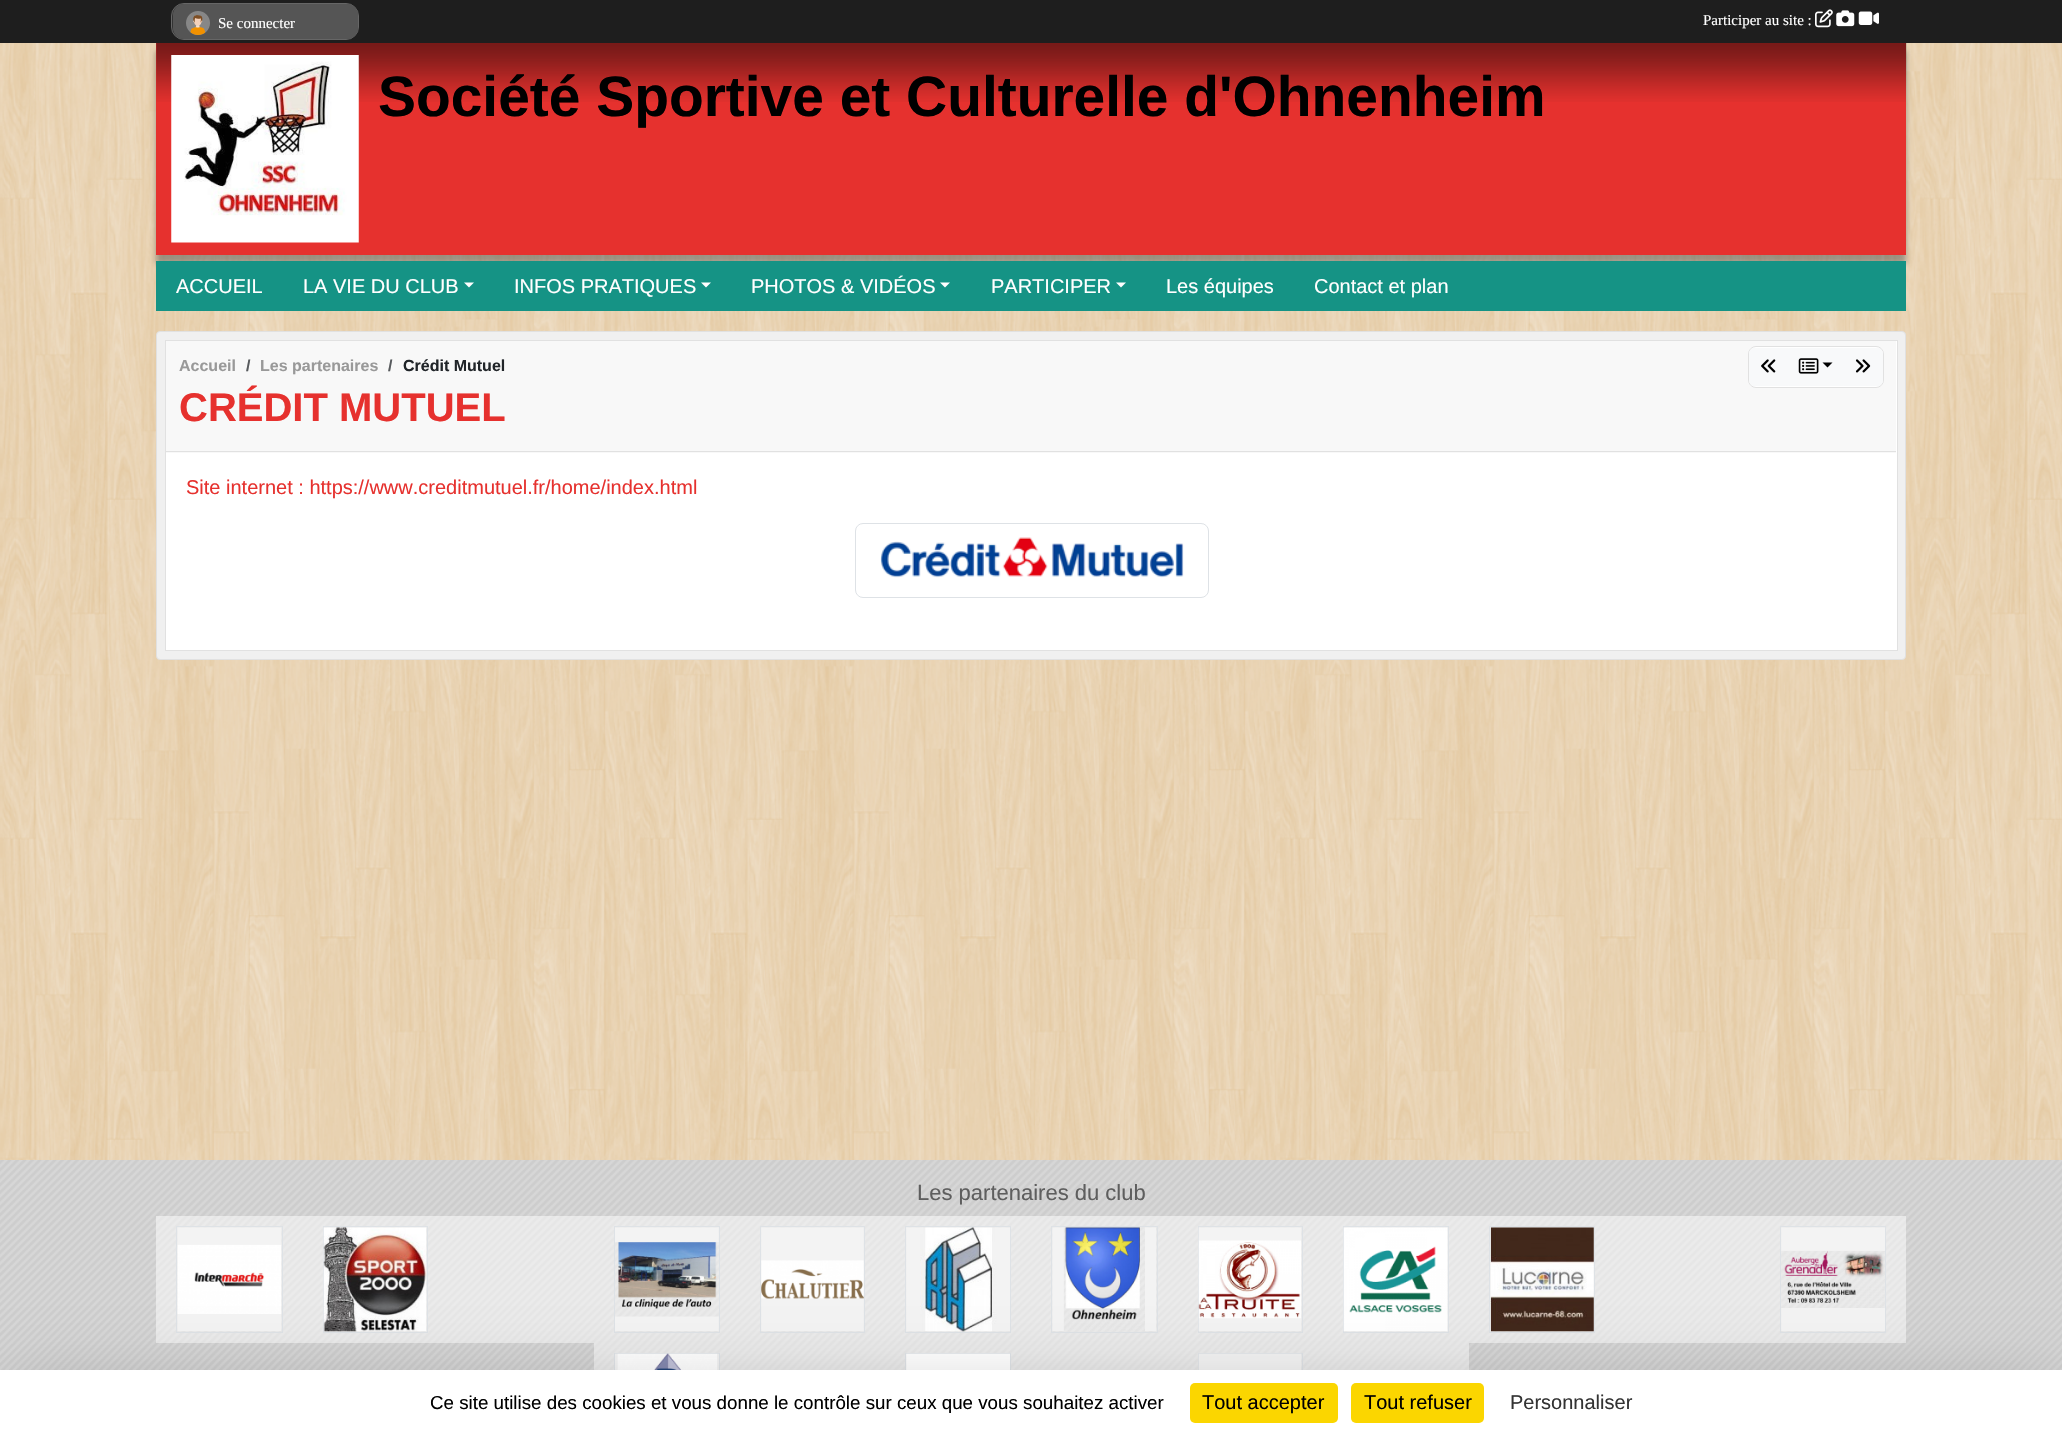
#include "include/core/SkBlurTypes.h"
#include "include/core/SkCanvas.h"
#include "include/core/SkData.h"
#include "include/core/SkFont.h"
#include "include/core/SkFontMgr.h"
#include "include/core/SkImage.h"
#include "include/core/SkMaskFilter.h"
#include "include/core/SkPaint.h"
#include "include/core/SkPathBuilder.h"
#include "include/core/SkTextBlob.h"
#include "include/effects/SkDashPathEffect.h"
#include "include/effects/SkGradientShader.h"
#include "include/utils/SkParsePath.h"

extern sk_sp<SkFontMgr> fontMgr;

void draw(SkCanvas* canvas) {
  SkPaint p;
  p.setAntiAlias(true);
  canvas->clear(SK_ColorWHITE);
  canvas->drawImageRect(SkImages::DeferredFromEncodedData(SkData::MakeFromFileName("images/1.png")), SkRect::MakeLTRB(0, 43, 2062, 1160), SkSamplingOptions());
  p.setColor(SkColorSetARGB(128, 80, 80, 80));
  p.setMaskFilter(SkMaskFilter::MakeBlur(kNormal_SkBlurStyle, 3));
  canvas->drawRect(SkRect::MakeLTRB(156, 51, 1906, 264), p);
  p.setMaskFilter(nullptr);
  p.setColor(SkColorSetRGB(30, 30, 30));
  canvas->drawRect(SkRect::MakeLTRB(0, 0, 2062, 43), p);
  p.setColor(SkColorSetRGB(51, 51, 51));
  canvas->drawRoundRect(SkRect::MakeLTRB(171.5f, 3.5f, 358.5f, 39.5f), 12.5f, 12.5f, p);
  p.setStyle(SkPaint::kStroke_Style);
  p.setStrokeWidth(1);
  p.setColor(SkColorSetRGB(102, 102, 102));
  canvas->drawRoundRect(SkRect::MakeLTRB(171.5f, 3.5f, 358.5f, 39.5f), 12.5f, 12.5f, p);
  p.setStyle(SkPaint::kFill_Style);
  p.setColor(SkColorSetRGB(85, 85, 85));
  canvas->drawRoundRect(SkRect::MakeLTRB(173, 4, 358, 39), 11, 11, p);
  canvas->drawImageRect(SkImages::DeferredFromEncodedData(SkData::MakeFromFileName("images/2.png")), SkRect::MakeLTRB(186, 11, 210, 35), SkSamplingOptions());
  canvas->drawImageRect(SkImages::DeferredFromEncodedData(SkData::MakeFromFileName("images/3.png")), SkRect::MakeLTRB(1815, 9, 1833, 28), SkSamplingOptions());
  canvas->drawImageRect(SkImages::DeferredFromEncodedData(SkData::MakeFromFileName("images/4.png")), SkRect::MakeLTRB(1836, 10, 1855, 27), SkSamplingOptions());
  canvas->drawImageRect(SkImages::DeferredFromEncodedData(SkData::MakeFromFileName("images/5.png")), SkRect::MakeLTRB(1858, 11, 1879, 25), SkSamplingOptions());
  p.setColor(SkColorSetRGB(230, 49, 46));
  canvas->drawRect(SkRect::MakeLTRB(156, 43, 1906, 255), p);
  canvas->drawImageRect(SkImages::DeferredFromEncodedData(SkData::MakeFromFileName("images/6.png")), SkRect::MakeLTRB(156, 43, 1907, 102), SkSamplingOptions());
  canvas->drawImageRect(SkImages::DeferredFromEncodedData(SkData::MakeFromFileName("images/7.png")), SkRect::MakeLTRB(171, 55, 359, 243), SkSamplingOptions());
  p.setColor(SkColorSetRGB(21, 147, 133));
  canvas->drawRect(SkRect::MakeLTRB(156, 261, 1906, 311), p);
  p.setColor(SK_ColorWHITE);
  canvas->drawPath(SkPathBuilder().moveTo(464, 282.5f).lineTo(474, 282.5f).lineTo(469, 287.5f).close().detach(), p);
  canvas->drawPath(SkPathBuilder().moveTo(701, 282.5f).lineTo(711, 282.5f).lineTo(706, 287.5f).close().detach(), p);
  canvas->drawPath(SkPathBuilder().moveTo(940, 282.5f).lineTo(950, 282.5f).lineTo(945, 287.5f).close().detach(), p);
  canvas->drawPath(SkPathBuilder().moveTo(1116, 282.5f).lineTo(1126, 282.5f).lineTo(1121, 287.5f).close().detach(), p);
  p.setColor(SkColorSetRGB(240, 240, 240));
  canvas->drawRoundRect(SkRect::MakeLTRB(156.5f, 331.5f, 1905.5f, 659.5f), 3.5f, 3.5f, p);
  p.setStyle(SkPaint::kStroke_Style);
  p.setColor(SkColorSetRGB(225, 225, 225));
  canvas->drawRoundRect(SkRect::MakeLTRB(156.5f, 331.5f, 1905.5f, 659.5f), 3.5f, 3.5f, p);
  p.setStyle(SkPaint::kFill_Style);
  p.setColor(SK_ColorWHITE);
  canvas->drawRect(SkRect::MakeLTRB(165.5f, 340.5f, 1897.5f, 650.5f), p);
  p.setStyle(SkPaint::kStroke_Style);
  p.setColor(SkColorSetRGB(225, 225, 225));
  canvas->drawRect(SkRect::MakeLTRB(165.5f, 340.5f, 1897.5f, 650.5f), p);
  p.setStyle(SkPaint::kFill_Style);
  p.setColor(SkColorSetRGB(248, 248, 248));
  canvas->drawRect(SkRect::MakeLTRB(166, 341, 1896, 453), p);
  p.setColor(SkColorSetRGB(225, 225, 225));
  canvas->drawRect(SkRect::MakeLTRB(166, 451, 1896, 452), p);
  p.setColor(SK_ColorWHITE);
  canvas->drawRoundRect(SkRect::MakeLTRB(1748.5f, 346.5f, 1883.5f, 387.5f), 7.5f, 7.5f, p);
  p.setStyle(SkPaint::kStroke_Style);
  p.setColor(SkColorSetRGB(225, 225, 225));
  canvas->drawRoundRect(SkRect::MakeLTRB(1748.5f, 346.5f, 1883.5f, 387.5f), 7.5f, 7.5f, p);
  p.setStyle(SkPaint::kFill_Style);
  p.setColor(SkColorSetRGB(248, 249, 250));
  canvas->drawPath(SkPathBuilder().moveTo(1754, 348.5f).lineTo(1788.5f, 348.5f).lineTo(1788.5f, 385.5f).lineTo(1754, 385.5f).cubicTo(1751.5f, 385.5f, 1749.5f, 383.5f, 1749.5f, 381).lineTo(1749.5f, 353).cubicTo(1749.5f, 350.5f, 1751.5f, 348.5f, 1754, 348.5f).close().detach(), p);
  p.setStyle(SkPaint::kStroke_Style);
  canvas->drawPath(SkPathBuilder().moveTo(1754, 348.5f).lineTo(1788.5f, 348.5f).lineTo(1788.5f, 385.5f).lineTo(1754, 385.5f).cubicTo(1751.5f, 385.5f, 1749.5f, 383.5f, 1749.5f, 381).lineTo(1749.5f, 353).cubicTo(1749.5f, 350.5f, 1751.5f, 348.5f, 1754, 348.5f).close().detach(), p);
  canvas->drawImageRect(SkImages::DeferredFromEncodedData(SkData::MakeFromFileName("images/8.png")), SkRect::MakeLTRB(1761, 359, 1776, 373), SkSamplingOptions());
  p.setStyle(SkPaint::kFill_Style);
  canvas->drawRect(SkRect::MakeLTRB(1789, 348, 1843, 386), p);
  canvas->drawImageRect(SkImages::DeferredFromEncodedData(SkData::MakeFromFileName("images/9.png")), SkRect::MakeLTRB(1798, 358, 1819, 374), SkSamplingOptions());
  p.setColor(SK_ColorBLACK);
  canvas->drawPath(SkPathBuilder().moveTo(1822.5f, 362.5f).lineTo(1832.5f, 362.5f).lineTo(1827.5f, 367.5f).close().detach(), p);
  p.setColor(SkColorSetRGB(248, 249, 250));
  canvas->drawPath(SkPathBuilder().moveTo(1843.5f, 348.5f).lineTo(1878, 348.5f).cubicTo(1880.5f, 348.5f, 1882.5f, 350.5f, 1882.5f, 353).lineTo(1882.5f, 381).cubicTo(1882.5f, 383.5f, 1880.5f, 385.5f, 1878, 385.5f).lineTo(1843.5f, 385.5f).close().detach(), p);
  p.setStyle(SkPaint::kStroke_Style);
  canvas->drawPath(SkPathBuilder().moveTo(1843.5f, 348.5f).lineTo(1878, 348.5f).cubicTo(1880.5f, 348.5f, 1882.5f, 350.5f, 1882.5f, 353).lineTo(1882.5f, 381).cubicTo(1882.5f, 383.5f, 1880.5f, 385.5f, 1878, 385.5f).lineTo(1843.5f, 385.5f).close().detach(), p);
  canvas->drawImageRect(SkImages::DeferredFromEncodedData(SkData::MakeFromFileName("images/10.png")), SkRect::MakeLTRB(1855, 359, 1871, 373), SkSamplingOptions());
  p.setColor(SkColorSetRGB(222, 226, 230));
  canvas->drawRoundRect(SkRect::MakeLTRB(855.5f, 523.5f, 1208.5f, 597.5f), 7.5f, 7.5f, p);
  canvas->drawImageRect(SkImages::DeferredFromEncodedData(SkData::MakeFromFileName("images/11.png")), SkRect::MakeLTRB(880, 537, 1184, 578), SkSamplingOptions());
  canvas->drawImageRect(SkImages::DeferredFromEncodedData(SkData::MakeFromFileName("images/12.png")), SkRect::MakeLTRB(0, 1160, 2062, 1370), SkSamplingOptions());
  p.setStyle(SkPaint::kFill_Style);
  p.setColor(SkColorSetARGB(128, 255, 255, 255));
  canvas->drawRect(SkRect::MakeLTRB(156, 1216, 303, 1343), p);
  p.setStyle(SkPaint::kStroke_Style);
  p.setColor(SkColorSetRGB(222, 226, 230));
  canvas->drawRect(SkRect::MakeLTRB(176.5f, 1226.5f, 282.5f, 1332.5f), p);
  canvas->drawImageRect(SkImages::DeferredFromEncodedData(SkData::MakeFromFileName("images/13.png")), SkRect::MakeLTRB(177, 1227, 282, 1331), SkSamplingOptions());
  p.setStyle(SkPaint::kFill_Style);
  p.setColor(SkColorSetARGB(128, 255, 255, 255));
  canvas->drawRect(SkRect::MakeLTRB(303, 1216, 448, 1343), p);
  p.setStyle(SkPaint::kStroke_Style);
  p.setColor(SkColorSetRGB(222, 226, 230));
  canvas->drawRect(SkRect::MakeLTRB(323.5f, 1226.5f, 427.5f, 1332.5f), p);
  canvas->drawImageRect(SkImages::DeferredFromEncodedData(SkData::MakeFromFileName("images/14.png")), SkRect::MakeLTRB(323, 1227, 427, 1332), SkSamplingOptions());
  p.setStyle(SkPaint::kFill_Style);
  p.setColor(SkColorSetARGB(128, 255, 255, 255));
  canvas->drawRect(SkRect::MakeLTRB(448, 1216, 594, 1343), p);
  canvas->drawRect(SkRect::MakeLTRB(594, 1216, 740, 1343), p);
  p.setStyle(SkPaint::kStroke_Style);
  p.setColor(SkColorSetRGB(222, 226, 230));
  canvas->drawRect(SkRect::MakeLTRB(614.5f, 1226.5f, 719.5f, 1332.5f), p);
  canvas->drawImageRect(SkImages::DeferredFromEncodedData(SkData::MakeFromFileName("images/15.png")), SkRect::MakeLTRB(615, 1227, 719, 1331), SkSamplingOptions());
  p.setStyle(SkPaint::kFill_Style);
  p.setColor(SkColorSetARGB(128, 255, 255, 255));
  canvas->drawRect(SkRect::MakeLTRB(740, 1216, 885, 1343), p);
  p.setStyle(SkPaint::kStroke_Style);
  p.setColor(SkColorSetRGB(222, 226, 230));
  canvas->drawRect(SkRect::MakeLTRB(760.5f, 1226.5f, 864.5f, 1332.5f), p);
  canvas->drawImageRect(SkImages::DeferredFromEncodedData(SkData::MakeFromFileName("images/16.png")), SkRect::MakeLTRB(761, 1227, 864, 1331), SkSamplingOptions());
  p.setStyle(SkPaint::kFill_Style);
  p.setColor(SkColorSetARGB(128, 255, 255, 255));
  canvas->drawRect(SkRect::MakeLTRB(885, 1216, 1031, 1343), p);
  p.setStyle(SkPaint::kStroke_Style);
  p.setColor(SkColorSetRGB(222, 226, 230));
  canvas->drawRect(SkRect::MakeLTRB(905.5f, 1226.5f, 1010.5f, 1332.5f), p);
  canvas->drawImageRect(SkImages::DeferredFromEncodedData(SkData::MakeFromFileName("images/17.png")), SkRect::MakeLTRB(906, 1227, 1010, 1332), SkSamplingOptions());
  p.setStyle(SkPaint::kFill_Style);
  p.setColor(SkColorSetARGB(128, 255, 255, 255));
  canvas->drawRect(SkRect::MakeLTRB(1031, 1216, 1178, 1343), p);
  p.setStyle(SkPaint::kStroke_Style);
  p.setColor(SkColorSetRGB(222, 226, 230));
  canvas->drawRect(SkRect::MakeLTRB(1051.5f, 1226.5f, 1157.5f, 1332.5f), p);
  canvas->drawImageRect(SkImages::DeferredFromEncodedData(SkData::MakeFromFileName("images/18.png")), SkRect::MakeLTRB(1052, 1227, 1156, 1331), SkSamplingOptions());
  p.setStyle(SkPaint::kFill_Style);
  p.setColor(SkColorSetARGB(128, 255, 255, 255));
  canvas->drawRect(SkRect::MakeLTRB(1178, 1216, 1323, 1343), p);
  p.setStyle(SkPaint::kStroke_Style);
  p.setColor(SkColorSetRGB(222, 226, 230));
  canvas->drawRect(SkRect::MakeLTRB(1198.5f, 1226.5f, 1302.5f, 1332.5f), p);
  canvas->drawImageRect(SkImages::DeferredFromEncodedData(SkData::MakeFromFileName("images/19.png")), SkRect::MakeLTRB(1198, 1227, 1302, 1331), SkSamplingOptions());
  p.setStyle(SkPaint::kFill_Style);
  p.setColor(SkColorSetARGB(128, 255, 255, 255));
  canvas->drawRect(SkRect::MakeLTRB(1323, 1216, 1469, 1343), p);
  p.setStyle(SkPaint::kStroke_Style);
  p.setColor(SkColorSetRGB(222, 226, 230));
  canvas->drawRect(SkRect::MakeLTRB(1343.5f, 1226.5f, 1448.5f, 1332.5f), p);
  canvas->drawImageRect(SkImages::DeferredFromEncodedData(SkData::MakeFromFileName("images/20.png")), SkRect::MakeLTRB(1343, 1227, 1448, 1332), SkSamplingOptions());
  p.setStyle(SkPaint::kFill_Style);
  p.setColor(SkColorSetARGB(128, 255, 255, 255));
  canvas->drawRect(SkRect::MakeLTRB(1469, 1216, 1615, 1343), p);
  p.setStyle(SkPaint::kStroke_Style);
  p.setColor(SkColorSetRGB(222, 226, 230));
  canvas->drawRect(SkRect::MakeLTRB(1489.5f, 1226.5f, 1594.5f, 1332.5f), p);
  canvas->drawImageRect(SkImages::DeferredFromEncodedData(SkData::MakeFromFileName("images/21.png")), SkRect::MakeLTRB(1490, 1227, 1594, 1332), SkSamplingOptions());
  p.setStyle(SkPaint::kFill_Style);
  p.setColor(SkColorSetARGB(128, 255, 255, 255));
  canvas->drawRect(SkRect::MakeLTRB(1615, 1216, 1760, 1343), p);
  canvas->drawRect(SkRect::MakeLTRB(1760, 1216, 1906, 1343), p);
  p.setStyle(SkPaint::kStroke_Style);
  p.setColor(SkColorSetRGB(222, 226, 230));
  canvas->drawRect(SkRect::MakeLTRB(1780.5f, 1226.5f, 1885.5f, 1332.5f), p);
  canvas->drawImageRect(SkImages::DeferredFromEncodedData(SkData::MakeFromFileName("images/22.png")), SkRect::MakeLTRB(1781, 1227, 1885, 1331), SkSamplingOptions());
  p.setStyle(SkPaint::kFill_Style);
  p.setColor(SkColorSetARGB(128, 255, 255, 255));
  canvas->drawRect(SkRect::MakeLTRB(594, 1343, 740, 1370), p);
  p.setStyle(SkPaint::kStroke_Style);
  p.setColor(SkColorSetRGB(222, 226, 230));
  canvas->drawRect(SkRect::MakeLTRB(614.5f, 1353.5f, 719.5f, 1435.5f), p);
  canvas->drawImageRect(SkImages::DeferredFromEncodedData(SkData::MakeFromFileName("images/23.png")), SkRect::MakeLTRB(615, 1353, 719, 1370), SkSamplingOptions());
  p.setStyle(SkPaint::kFill_Style);
  p.setColor(SkColorSetARGB(128, 255, 255, 255));
  canvas->drawRect(SkRect::MakeLTRB(740, 1343, 885, 1370), p);
  canvas->drawRect(SkRect::MakeLTRB(885, 1343, 1031, 1370), p);
  p.setStyle(SkPaint::kStroke_Style);
  p.setColor(SkColorSetRGB(222, 226, 230));
  canvas->drawRect(SkRect::MakeLTRB(905.5f, 1353.5f, 1010.5f, 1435.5f), p);
  canvas->drawImageRect(SkImages::DeferredFromEncodedData(SkData::MakeFromFileName("images/24.png")), SkRect::MakeLTRB(906, 1353, 1010, 1370), SkSamplingOptions());
  p.setStyle(SkPaint::kFill_Style);
  p.setColor(SkColorSetARGB(128, 255, 255, 255));
  canvas->drawRect(SkRect::MakeLTRB(1031, 1343, 1178, 1370), p);
  canvas->drawRect(SkRect::MakeLTRB(1178, 1343, 1323, 1370), p);
  p.setStyle(SkPaint::kStroke_Style);
  p.setColor(SkColorSetRGB(222, 226, 230));
  canvas->drawRect(SkRect::MakeLTRB(1198.5f, 1353.5f, 1302.5f, 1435.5f), p);
  canvas->drawImageRect(SkImages::DeferredFromEncodedData(SkData::MakeFromFileName("images/25.png")), SkRect::MakeLTRB(1198, 1353, 1302, 1370), SkSamplingOptions());
  p.setStyle(SkPaint::kFill_Style);
  p.setColor(SkColorSetARGB(128, 255, 255, 255));
  canvas->drawRect(SkRect::MakeLTRB(1323, 1343, 1469, 1370), p);
  p.setColor(SkColorSetARGB(64, 0, 0, 0));
  p.setMaskFilter(SkMaskFilter::MakeBlur(kNormal_SkBlurStyle, 37.5f));
  canvas->drawRect(SkRect::MakeLTRB(0, 1395, 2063, 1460), p);
  p.setMaskFilter(nullptr);
  p.setColor(SK_ColorWHITE);
  canvas->drawRect(SkRect::MakeLTRB(0, 1370, 2062, 1435), p);
  p.setColor(SkColorSetRGB(251, 214, 0));
  canvas->drawRoundRect(SkRect::MakeLTRB(1190, 1383, 1338, 1423), 5, 5, p);
  canvas->drawRoundRect(SkRect::MakeLTRB(1351, 1383, 1484, 1423), 5, 5, p);
  SkFont font1(fontMgr->matchFamilyStyle("Liberation Serif", SkFontStyle::Normal()), 15);
  font1.setSubpixel(true);
  p.setColor(SK_ColorWHITE);
  canvas->drawString("Se connecter", 218, 28, font1, p);
  canvas->drawString("Participer au site :", 1703, 25, font1, p);
  SkFont font2(fontMgr->matchFamilyStyle("Liberation Sans", SkFontStyle::Bold()), 56.9f);
  font2.setSubpixel(true);
  p.setColor(SK_ColorBLACK);
  canvas->drawString("Société Sportive et Culturelle d'Ohnenheim", 378, 116, font2, p);
  SkFont font3(fontMgr->matchFamilyStyle("Liberation Sans", SkFontStyle::Normal()), 20);
  font3.setSubpixel(true);
  p.setColor(SK_ColorWHITE);
  canvas->drawString("ACCUEIL", 176, 293, font3, p);
  canvas->drawString("LA VIE DU CLUB", 303, 293, font3, p);
  canvas->drawString("INFOS PRATIQUES", 514, 293, font3, p);
  canvas->drawString("PHOTOS & VIDÉOS", 751, 293, font3, p);
  canvas->drawString("PARTICIPER", 991, 293, font3, p);
  canvas->drawString("Les équipes", 1166, 293, font3, p);
  canvas->drawString("Contact et plan", 1314, 293, font3, p);
  SkFont font4(fontMgr->matchFamilyStyle("Liberation Sans", SkFontStyle::Bold()), 16);
  font4.setSubpixel(true);
  p.setColor(SkColorSetRGB(153, 153, 153));
  canvas->drawString("Accueil", 179, 371, font4, p);
  p.setColor(SkColorSetRGB(87, 90, 93));
  canvas->drawString("/", 246, 371, font4, p);
  p.setColor(SkColorSetRGB(153, 153, 153));
  canvas->drawString("Les partenaires", 260, 371, font4, p);
  p.setColor(SkColorSetRGB(87, 90, 93));
  canvas->drawString("/", 388, 371, font4, p);
  p.setColor(SkColorSetRGB(33, 37, 41));
  canvas->drawString("Crédit Mutuel", 403, 371, font4, p);
  SkFont font5(fontMgr->matchFamilyStyle("Liberation Sans", SkFontStyle::Bold()), 40);
  font5.setSubpixel(true);
  p.setColor(SkColorSetRGB(230, 49, 46));
  canvas->drawString("CRÉDIT MUTUEL", 179, 421, font5, p);
  canvas->drawString("Site internet : https://www.creditmutuel.fr/home/index.html", 186, 494, font3, p);
  SkFont font6(fontMgr->matchFamilyStyle("Liberation Sans", SkFontStyle::Normal()), 22);
  font6.setSubpixel(true);
  p.setColor(SkColorSetRGB(94, 94, 94));
  canvas->drawString("Les partenaires du club", 917, 1200, font6, p);
  SkFont font7(fontMgr->matchFamilyStyle("Liberation Sans", SkFontStyle::Normal()), 18.75f);
  font7.setSubpixel(true);
  p.setColor(SK_ColorBLACK);
  canvas->drawString("Ce site utilise des cookies et vous donne le contrôle sur ceux que vous souhaitez activer", 430, 1409, font7, p);
  canvas->drawString("Tout accepter", 1202, 1409, font3, p);
  canvas->drawString("Tout refuser", 1364, 1409, font3, p);
  p.setColor(SkColorSetRGB(51, 51, 51));
  canvas->drawString("Personnaliser", 1510, 1409, font3, p);
}
